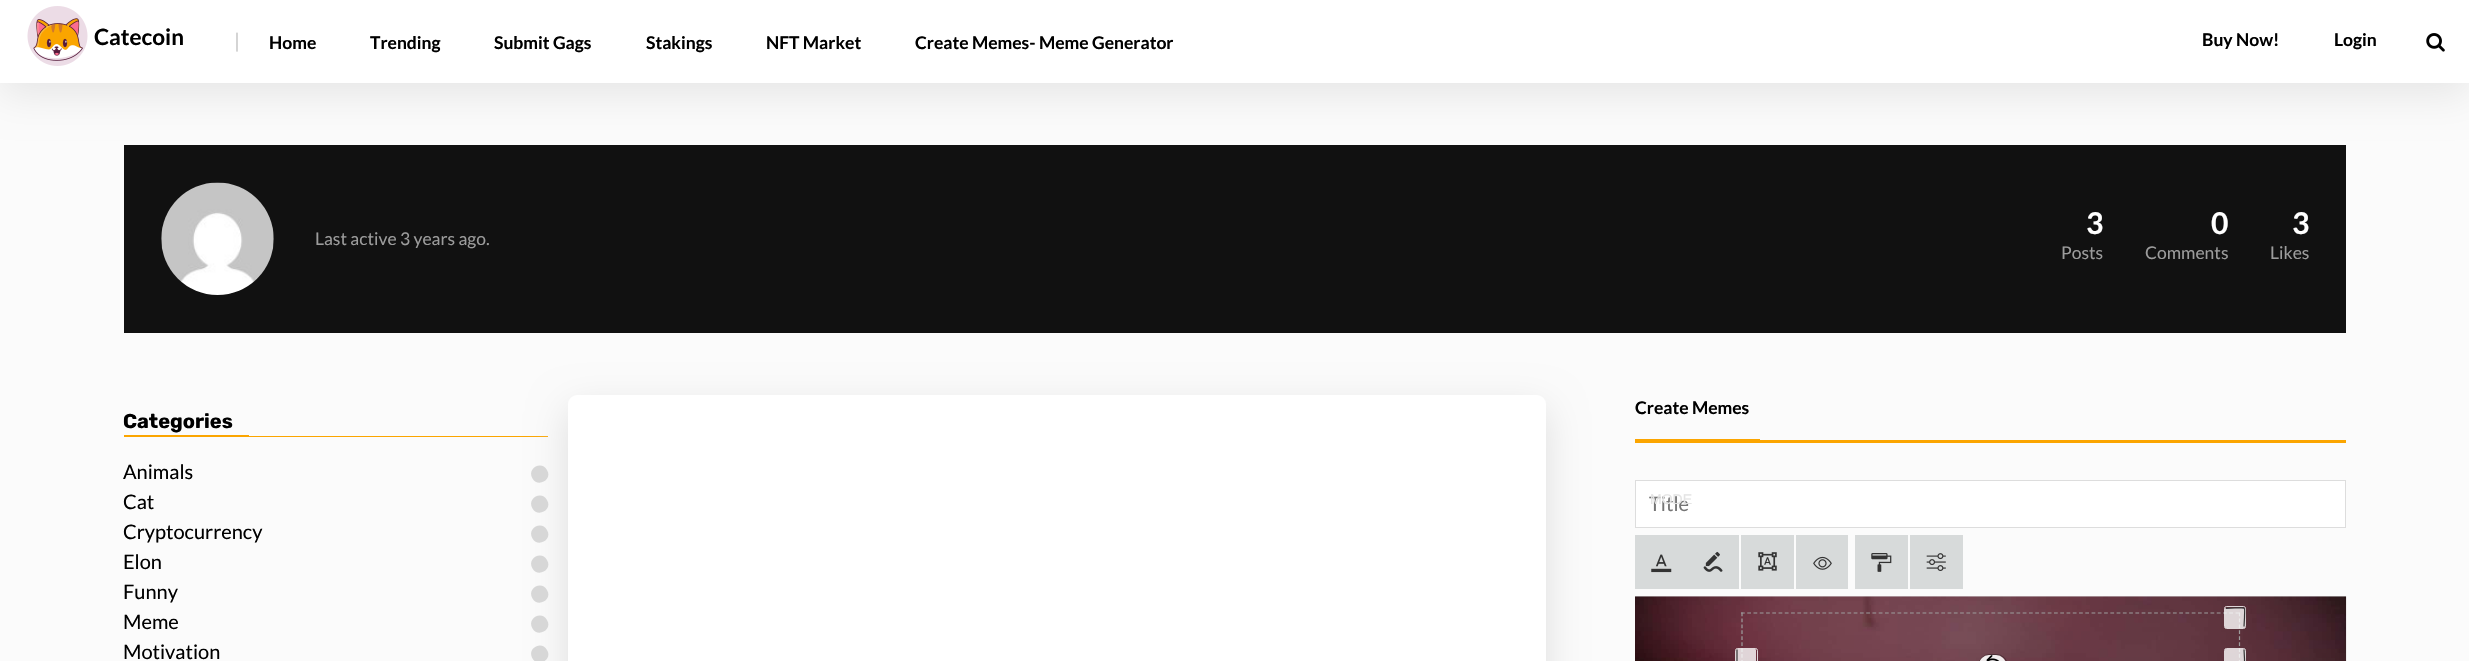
#include "include/core/SkBlurTypes.h"
#include "include/core/SkCanvas.h"
#include "include/core/SkData.h"
#include "include/core/SkFont.h"
#include "include/core/SkFontMgr.h"
#include "include/core/SkImage.h"
#include "include/core/SkMaskFilter.h"
#include "include/core/SkPaint.h"
#include "include/core/SkPathBuilder.h"
#include "include/core/SkTextBlob.h"
#include "include/effects/SkDashPathEffect.h"
#include "include/effects/SkGradientShader.h"
#include "include/utils/SkParsePath.h"

extern sk_sp<SkFontMgr> fontMgr;

void draw(SkCanvas* canvas) {
  SkPaint p;
  p.setAntiAlias(true);
  canvas->clear(SkColorSetRGB(251, 251, 251));
  p.setColor(SkColorSetRGB(17, 17, 17));
  canvas->drawRect(SkRect::MakeLTRB(124, 145, 2346, 333), p);
  p.setColor(SkColorSetRGB(230, 230, 230));
  p.setMaskFilter(SkMaskFilter::MakeBlur(kNormal_SkBlurStyle, 19));
  canvas->drawRect(SkRect::MakeLTRB(0, 13, 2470, 95), p);
  p.setMaskFilter(nullptr);
  p.setColor(SK_ColorWHITE);
  canvas->drawRect(SkRect::MakeLTRB(0, 0, 2469, 83), p);
  canvas->drawImageRect(SkImages::DeferredFromEncodedData(SkData::MakeFromFileName("images/1.png")), SkRect::MakeLTRB(27, 6, 88, 66), SkSamplingOptions());
  canvas->drawImageRect(SkImages::DeferredFromEncodedData(SkData::MakeFromFileName("images/2.png")), SkRect::MakeLTRB(2426, 33, 2445, 52), SkSamplingOptions());
  canvas->drawImageRect(SkImages::DeferredFromEncodedData(SkData::MakeFromFileName("images/3.png")), SkRect::MakeLTRB(161, 182, 274, 295), SkSamplingOptions());
  p.setColor(SkColorSetRGB(251, 165, 0));
  canvas->drawRect(SkRect::MakeLTRB(124, 436, 548, 437), p);
  canvas->drawRect(SkRect::MakeLTRB(124, 435, 249, 436), p);
  p.setColor(SkColorSetRGB(222, 222, 222));
  p.setMaskFilter(SkMaskFilter::MakeBlur(kNormal_SkBlurStyle, 19));
  canvas->drawRoundRect(SkRect::MakeLTRB(568, 408, 1546, 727), 9, 9, p);
  p.setMaskFilter(nullptr);
  p.setColor(SkColorSetRGB(215, 215, 215));
  canvas->drawPath(SkPathBuilder().moveTo(547, 470).cubicTo(553, 479.5f, 538, 488, 532.5f, 478.5f).cubicTo(526.5f, 468.5f, 541.5f, 460, 547, 470).close().moveTo(547, 500).cubicTo(553, 509.5f, 538, 518, 532.5f, 508.5f).cubicTo(526.5f, 498.5f, 541.5f, 490, 547, 500).close().detach(), p);
  canvas->drawPath(SkPathBuilder().moveTo(547, 530).cubicTo(553, 539.5f, 538, 548, 532.5f, 538.5f).cubicTo(526.5f, 528.5f, 541.5f, 520, 547, 530).close().moveTo(547, 560).cubicTo(553, 569.5f, 538, 578, 532.5f, 568.5f).cubicTo(526.5f, 558.5f, 541.5f, 550, 547, 560).close().detach(), p);
  canvas->drawPath(SkPathBuilder().moveTo(547, 590).cubicTo(553, 599.5f, 538, 608, 532.5f, 598.5f).cubicTo(526.5f, 588.5f, 541.5f, 580, 547, 590).close().moveTo(547, 620).cubicTo(553, 629.5f, 538, 638, 532.5f, 628.5f).cubicTo(526.5f, 618.5f, 541.5f, 610, 547, 620).close().detach(), p);
  canvas->drawPath(SkPathBuilder().moveTo(547, 650).cubicTo(553, 659.5f, 538, 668, 532.5f, 658.5f).cubicTo(526.5f, 648.5f, 541.5f, 640, 547, 650).close().detach(), p);
  p.setColor(SK_ColorWHITE);
  canvas->drawRoundRect(SkRect::MakeLTRB(568, 395, 1546, 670), 9, 9, p);
  p.setColor(SkColorSetRGB(251, 165, 0));
  canvas->drawRect(SkRect::MakeLTRB(1635, 440, 2346, 443), p);
  canvas->drawRect(SkRect::MakeLTRB(1635, 439, 1760, 440), p);
  p.setColor(SkColorSetRGB(215, 218, 218));
  canvas->drawRect(SkRect::MakeLTRB(1635, 535, 1739, 589), p);
  canvas->drawImageRect(SkImages::DeferredFromEncodedData(SkData::MakeFromFileName("images/4.png")), SkRect::MakeLTRB(1651, 554, 1672, 573), SkSamplingOptions());
  canvas->drawImageRect(SkImages::DeferredFromEncodedData(SkData::MakeFromFileName("images/5.png")), SkRect::MakeLTRB(1703, 551, 1723, 572), SkSamplingOptions());
  canvas->drawRect(SkRect::MakeLTRB(1741, 535, 1794, 589), p);
  canvas->drawImageRect(SkImages::DeferredFromEncodedData(SkData::MakeFromFileName("images/6.png")), SkRect::MakeLTRB(1758, 552, 1777, 571), SkSamplingOptions());
  canvas->drawRect(SkRect::MakeLTRB(1796, 535, 1848, 589), p);
  canvas->drawImageRect(SkImages::DeferredFromEncodedData(SkData::MakeFromFileName("images/7.png")), SkRect::MakeLTRB(1813, 556, 1832, 570), SkSamplingOptions());
  canvas->drawRect(SkRect::MakeLTRB(1855, 535, 1908, 589), p);
  canvas->drawImageRect(SkImages::DeferredFromEncodedData(SkData::MakeFromFileName("images/8.png")), SkRect::MakeLTRB(1871, 553, 1892, 572), SkSamplingOptions());
  canvas->drawRect(SkRect::MakeLTRB(1910, 535, 1963, 589), p);
  canvas->drawImageRect(SkImages::DeferredFromEncodedData(SkData::MakeFromFileName("images/9.png")), SkRect::MakeLTRB(1926, 553, 1946, 571), SkSamplingOptions());
  p.setColor(SkColorSetRGB(235, 238, 238));
  canvas->drawRect(SkRect::MakeLTRB(1635, 596, 2346, 597), p);
  canvas->drawImageRect(SkImages::DeferredFromEncodedData(SkData::MakeFromFileName("images/10.png")), SkRect::MakeLTRB(1635, 596, 2347, 661), SkSamplingOptions());
  p.setStyle(SkPaint::kStroke_Style);
  p.setStrokeWidth(1.2f);
  p.setColor(SkColorSetRGB(157, 157, 157));
  p.setPathEffect(SkDashPathEffect::Make({{3.75f, 2.51f}}, 0));
  canvas->drawPath(SkPathBuilder().moveTo(1741, 613).lineTo(2240, 613).detach(), p);
  p.setPathEffect(nullptr);
  p.setPathEffect(SkDashPathEffect::Make({{3.75f, 2.19f}}, 0));
  canvas->drawPath(SkPathBuilder().moveTo(2239.5f, 612.5f).lineTo(2239.5f, 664).detach(), p);
  p.setPathEffect(nullptr);
  p.setPathEffect(SkDashPathEffect::Make({{3.75f, 2.19f}}, 0));
  canvas->drawPath(SkPathBuilder().moveTo(1742, 612.5f).lineTo(1742, 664).detach(), p);
  p.setPathEffect(nullptr);
  p.setStrokeWidth(1);
  p.setColor(SkColorSetARGB(204, 255, 255, 255));
  canvas->drawRoundRect(SkRect::MakeLTRB(2224.5f, 606.5f, 2245.5f, 628.5f), 2, 2, p);
  p.setStyle(SkPaint::kFill_Style);
  canvas->drawRoundRect(SkRect::MakeLTRB(2225, 608, 2245, 628), 1, 1, p);
  p.setStyle(SkPaint::kStroke_Style);
  p.setStrokeWidth(1.2f);
  p.setColor(SkColorSetRGB(51, 51, 51));
  canvas->drawPath(SkPathBuilder().moveTo(2226, 608.5f).lineTo(2235, 608).cubicTo(2247, 608, 2244.5f, 605.5f, 2244.5f, 617.5f).lineTo(2244, 626.5f).detach(), p);
  p.setStrokeWidth(1);
  p.setColor(SkColorSetARGB(204, 255, 255, 255));
  canvas->drawRoundRect(SkRect::MakeLTRB(1735.5f, 648.5f, 1757.5f, 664.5f), 2, 2, p);
  p.setStyle(SkPaint::kFill_Style);
  canvas->drawRoundRect(SkRect::MakeLTRB(1736, 649, 1756, 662), 1, 1, p);
  p.setStyle(SkPaint::kStroke_Style);
  p.setStrokeWidth(1.2f);
  p.setColor(SkColorSetRGB(51, 51, 51));
  canvas->drawPath(SkPathBuilder().moveTo(1755.5f, 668).lineTo(1746, 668).cubicTo(1734.5f, 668, 1737, 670.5f, 1737, 659).lineTo(1737, 649.5f).detach(), p);
  p.setStrokeWidth(1);
  p.setColor(SkColorSetARGB(77, 0, 0, 0));
  canvas->drawRoundRect(SkRect::MakeLTRB(1978.5f, 654.5f, 2007.5f, 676.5f), 14.5f, 14.5f, p);
  p.setStyle(SkPaint::kFill_Style);
  p.setColor(SkColorSetARGB(230, 255, 255, 255));
  canvas->drawRoundRect(SkRect::MakeLTRB(1979, 655, 2006, 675), 13.5f, 13.5f, p);
  canvas->drawImageRect(SkImages::DeferredFromEncodedData(SkData::MakeFromFileName("images/11.png")), SkRect::MakeLTRB(1986, 655, 2000, 661), SkSamplingOptions());
  p.setStyle(SkPaint::kStroke_Style);
  p.setColor(SkColorSetARGB(204, 255, 255, 255));
  canvas->drawRoundRect(SkRect::MakeLTRB(2224.5f, 648.5f, 2245.5f, 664.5f), 2, 2, p);
  p.setStyle(SkPaint::kFill_Style);
  canvas->drawRoundRect(SkRect::MakeLTRB(2225, 649, 2245, 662), 1, 1, p);
  p.setStyle(SkPaint::kStroke_Style);
  p.setStrokeWidth(1.2f);
  p.setColor(SkColorSetRGB(51, 51, 51));
  canvas->drawPath(SkPathBuilder().moveTo(2244, 649.5f).lineTo(2244.5f, 659).cubicTo(2244.5f, 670.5f, 2247, 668, 2235, 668).lineTo(2226, 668).detach(), p);
  p.setStyle(SkPaint::kFill_Style);
  p.setColor(SK_ColorWHITE);
  canvas->drawRect(SkRect::MakeLTRB(1635.5f, 480.5f, 2345.5f, 527.5f), p);
  p.setStyle(SkPaint::kStroke_Style);
  p.setStrokeWidth(1);
  p.setColor(SkColorSetRGB(221, 221, 221));
  canvas->drawRect(SkRect::MakeLTRB(1635.5f, 480.5f, 2345.5f, 527.5f), p);
  SkFont font1(fontMgr->matchFamilyStyle("Lato", SkFontStyle::Bold()), 22.5f);
  font1.setSubpixel(true);
  p.setStyle(SkPaint::kFill_Style);
  p.setColor(SK_ColorBLACK);
  canvas->drawString("Catecoin", 94, 45, font1, p);
  SkFont font2(fontMgr->matchFamilyStyle("Lato", SkFontStyle::Normal()), 20);
  font2.setSubpixel(true);
  p.setColor(SkColorSetRGB(200, 200, 200));
  canvas->drawString("|", 234, 48, font2, p);
  SkFont font3(fontMgr->matchFamilyStyle("Lato", SkFontStyle::Bold()), 17.5f);
  font3.setSubpixel(true);
  p.setColor(SK_ColorBLACK);
  canvas->drawString("Home", 269, 49, font3, p);
  canvas->drawString("Trending", 370, 49, font3, p);
  canvas->drawString("Submit Gags", 494, 49, font3, p);
  canvas->drawString("Stakings", 646, 49, font3, p);
  canvas->drawString("NFT Market", 766, 49, font3, p);
  canvas->drawString("Create Memes- Meme Generator", 915, 49, font3, p);
  canvas->drawString("Buy Now!", 2202, 46, font3, p);
  canvas->drawString("Login", 2334, 46, font3, p);
  SkFont font4(fontMgr->matchFamilyStyle("Lato", SkFontStyle::Normal()), 17.5f);
  font4.setSubpixel(true);
  p.setColor(SkColorSetRGB(156, 156, 156));
  canvas->drawString("Last active 3 years ago.", 315, 245, font4, p);
  SkFont font5(fontMgr->matchFamilyStyle("Lato", SkFontStyle::Bold()), 30);
  font5.setSubpixel(true);
  p.setColor(SK_ColorWHITE);
  canvas->drawString("3", 2086, 234, font5, p);
  p.setColor(SkColorSetRGB(156, 156, 156));
  canvas->drawString("Posts", 2061, 259, font4, p);
  p.setColor(SK_ColorWHITE);
  canvas->drawString("0", 2211, 234, font5, p);
  p.setColor(SkColorSetRGB(156, 156, 156));
  canvas->drawString("Comments", 2145, 259, font4, p);
  p.setColor(SK_ColorWHITE);
  canvas->drawString("3", 2292, 234, font5, p);
  p.setColor(SkColorSetRGB(156, 156, 156));
  canvas->drawString("Likes", 2270, 259, font4, p);
  SkFont font6(fontMgr->matchFamilyStyle("Rubik", SkFontStyle::Bold()), 20);
  font6.setSubpixel(true);
  p.setColor(SK_ColorBLACK);
  canvas->drawString("Categories", 123, 428, font6, p);
  canvas->drawString("Animals", 123, 479, font2, p);
  canvas->drawString("Cat", 123, 509, font2, p);
  canvas->drawString("Cryptocurrency", 123, 539, font2, p);
  canvas->drawString("Elon", 123, 569, font2, p);
  canvas->drawString("Funny", 123, 599, font2, p);
  canvas->drawString("Meme", 123, 629, font2, p);
  canvas->drawString("Motivation", 123, 659, font2, p);
  canvas->drawString("Create Memes", 1635, 414, font3, p);
  p.setColor(SkColorSetRGB(117, 117, 117));
  canvas->drawString("Title", 1649, 511, font2, p);
  SkFont font7(fontMgr->matchFamilyStyle("Liberation Sans", SkFontStyle::Normal()), 14);
  font7.setSubpixel(true);
  p.setColor(SkColorSetRGB(228, 228, 228));
  canvas->drawString("MODE", 1650, 504, font7, p);
}
